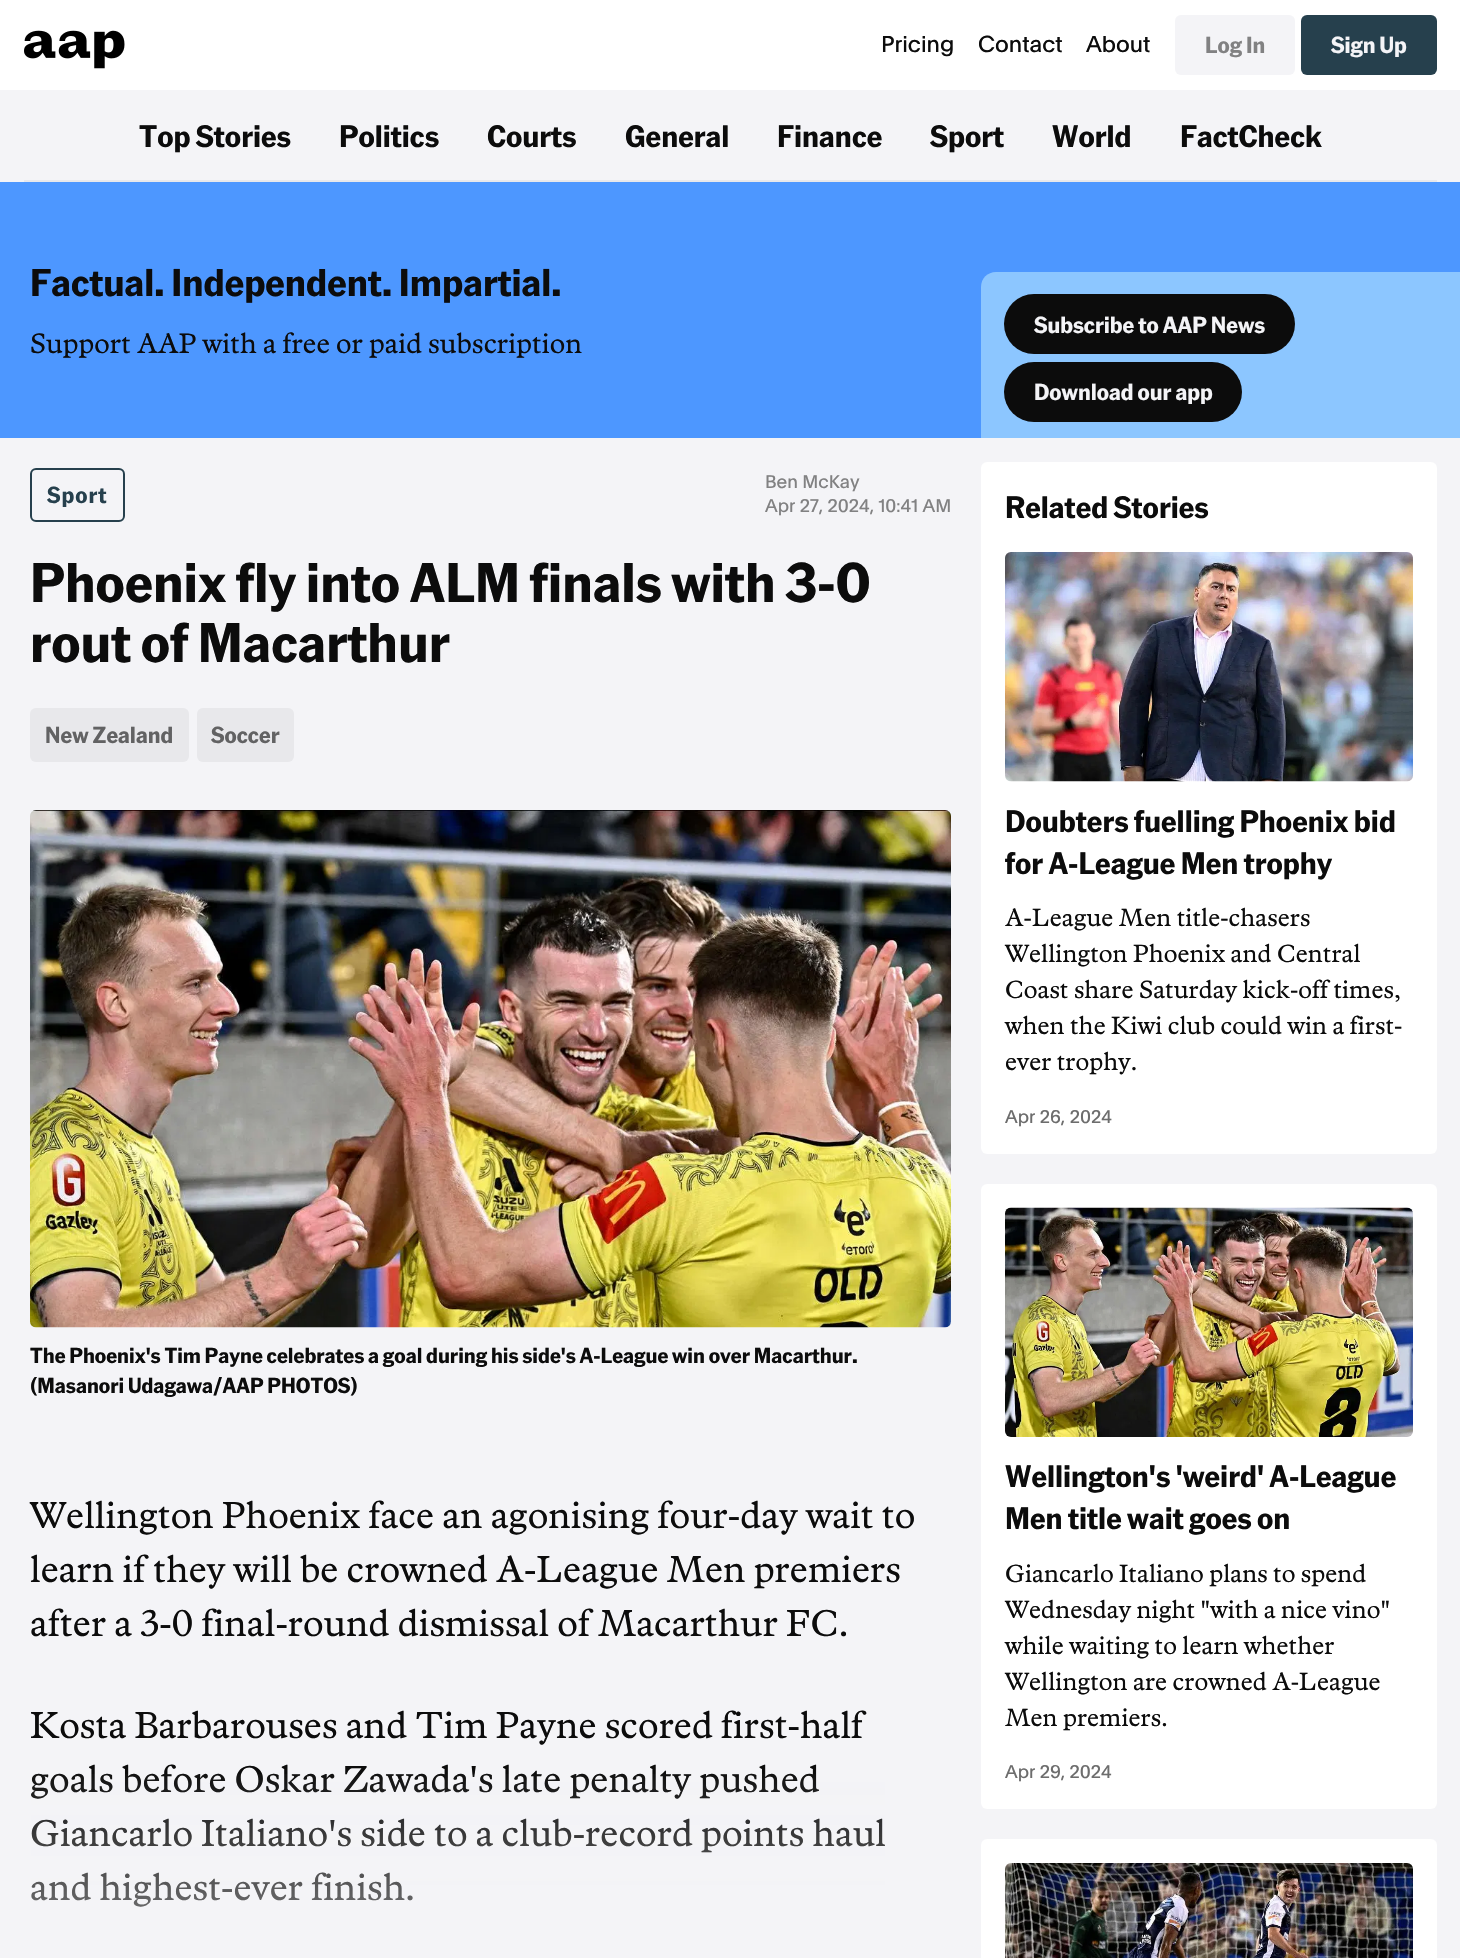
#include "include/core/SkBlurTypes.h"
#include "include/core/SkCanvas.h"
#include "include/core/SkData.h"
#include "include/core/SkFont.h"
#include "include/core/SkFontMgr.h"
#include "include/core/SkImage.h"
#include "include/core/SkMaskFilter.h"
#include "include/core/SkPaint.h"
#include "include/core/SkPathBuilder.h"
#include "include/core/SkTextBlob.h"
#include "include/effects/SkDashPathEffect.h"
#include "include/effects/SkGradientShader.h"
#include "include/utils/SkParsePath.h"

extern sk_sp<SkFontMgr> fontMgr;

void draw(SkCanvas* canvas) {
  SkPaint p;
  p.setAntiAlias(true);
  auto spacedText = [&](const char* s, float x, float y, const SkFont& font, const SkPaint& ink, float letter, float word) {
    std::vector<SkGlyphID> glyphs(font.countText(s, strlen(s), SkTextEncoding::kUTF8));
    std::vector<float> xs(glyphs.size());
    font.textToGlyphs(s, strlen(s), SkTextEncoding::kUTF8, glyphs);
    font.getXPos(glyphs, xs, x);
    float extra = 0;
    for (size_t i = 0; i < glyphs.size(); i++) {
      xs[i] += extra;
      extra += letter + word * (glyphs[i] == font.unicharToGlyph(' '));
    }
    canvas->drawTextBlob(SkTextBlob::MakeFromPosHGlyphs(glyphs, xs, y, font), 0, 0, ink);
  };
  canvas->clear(SkColorSetRGB(244, 244, 247));
  p.setColor(SK_ColorWHITE);
  canvas->drawRect(SkRect::MakeLTRB(0, 0, 1460, 90), p);
  canvas->drawImageRect(SkImages::DeferredFromEncodedData(SkData::MakeFromFileName("images/1.png")), SkRect::MakeLTRB(24, 30, 125, 69), SkSamplingOptions());
  p.setColor(SkColorSetRGB(244, 244, 247));
  canvas->drawRoundRect(SkRect::MakeLTRB(1175, 15, 1295, 75), 6, 6, p);
  p.setColor(SkColorSetRGB(38, 64, 77));
  canvas->drawRoundRect(SkRect::MakeLTRB(1301, 15, 1437, 75), 6, 6, p);
  p.setColor(SkColorSetRGB(232, 232, 235));
  canvas->drawRect(SkRect::MakeLTRB(24, 180, 1437, 182), p);
  p.setColor(SkColorSetRGB(77, 151, 255));
  canvas->drawRect(SkRect::MakeLTRB(0, 182, 1460, 438), p);
  p.setColor(SkColorSetRGB(140, 198, 255));
  canvas->drawPath(SkPathBuilder().moveTo(996, 272).lineTo(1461, 272).lineTo(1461, 438).lineTo(981, 438).lineTo(981, 287).cubicTo(981, 278.5f, 987.5f, 272, 996, 272).close().detach(), p);
  p.setColor(SkColorSetRGB(12, 12, 12));
  canvas->drawRoundRect(SkRect::MakeLTRB(1004, 294, 1295, 354), 30, 30, p);
  canvas->drawRoundRect(SkRect::MakeLTRB(1004, 362, 1242, 422), 30, 30, p);
  p.setStyle(SkPaint::kStroke_Style);
  p.setStrokeWidth(2);
  p.setColor(SkColorSetRGB(38, 64, 77));
  canvas->drawRoundRect(SkRect::MakeLTRB(31, 469, 124, 521), 5, 5, p);
  p.setStyle(SkPaint::kFill_Style);
  p.setColor(SkColorSetRGB(232, 232, 235));
  canvas->drawRoundRect(SkRect::MakeLTRB(30, 708, 189, 762), 6, 6, p);
  canvas->drawRoundRect(SkRect::MakeLTRB(197, 708, 294, 762), 6, 6, p);
  canvas->drawImageRect(SkImages::DeferredFromEncodedData(SkData::MakeFromFileName("images/2.png")), SkRect::MakeLTRB(30, 810, 951, 1328), SkSamplingOptions());
  p.setColor(SK_ColorWHITE);
  canvas->drawRoundRect(SkRect::MakeLTRB(981, 462, 1437, 1154), 6, 6, p);
  canvas->drawImageRect(SkImages::DeferredFromEncodedData(SkData::MakeFromFileName("images/3.png")), SkRect::MakeLTRB(1005, 552, 1413, 782), SkSamplingOptions());
  canvas->drawRoundRect(SkRect::MakeLTRB(981, 1184, 1437, 1809), 6, 6, p);
  canvas->drawImageRect(SkImages::DeferredFromEncodedData(SkData::MakeFromFileName("images/4.png")), SkRect::MakeLTRB(1005, 1207, 1413, 1437), SkSamplingOptions());
  canvas->drawRoundRect(SkRect::MakeLTRB(981, 1839, 1437, 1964), 6, 6, p);
  canvas->drawImageRect(SkImages::DeferredFromEncodedData(SkData::MakeFromFileName("images/5.png")), SkRect::MakeLTRB(1005, 1863, 1413, 1958), SkSamplingOptions());
  SkFont font1(fontMgr->matchFamilyStyle("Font", SkFontStyle::Normal()), 22.5f);
  font1.setSubpixel(true);
  p.setColor(SkColorSetRGB(12, 12, 12));
  canvas->drawString("Pricing", 881, 52, font1, p);
  canvas->drawString("Contact", 978, 52, font1, p);
  canvas->drawString("About", 1086, 52, font1, p);
  SkFont font2(fontMgr->matchFamilyStyle("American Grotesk", SkFontStyle::Bold()), 22.5f);
  font2.setSubpixel(true);
  p.setColor(SkColorSetRGB(129, 129, 130));
  canvas->drawString("Log In", 1205, 53, font2, p);
  p.setColor(SkColorSetRGB(244, 244, 247));
  canvas->drawString("Sign Up", 1331, 53, font2, p);
  SkFont font3(fontMgr->matchFamilyStyle("American Grotesk", SkFontStyle::Bold()), 30);
  font3.setSubpixel(true);
  p.setColor(SkColorSetRGB(12, 12, 12));
  canvas->drawString("Top Stories", 139, 147, font3, p);
  canvas->drawString("Politics", 339, 147, font3, p);
  canvas->drawString("Courts", 487, 147, font3, p);
  canvas->drawString("General", 625, 147, font3, p);
  canvas->drawString("Finance", 777, 147, font3, p);
  canvas->drawString("Sport", 930, 147, font3, p);
  canvas->drawString("World", 1052, 147, font3, p);
  canvas->drawString("FactCheck", 1180, 147, font3, p);
  SkFont font4(fontMgr->matchFamilyStyle("American Grotesk", SkFontStyle::Bold()), 37.5f);
  font4.setSubpixel(true);
  canvas->drawString("Factual. Independent. Impartial.", 30, 296, font4, p);
  SkFont font5(fontMgr->matchFamilyStyle("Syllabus", SkFontStyle::Normal()), 27);
  font5.setSubpixel(true);
  canvas->drawString("Support AAP with a free or paid subscription", 30, 353, font5, p);
  p.setColor(SkColorSetRGB(244, 244, 247));
  canvas->drawString("Subscribe to AAP News", 1034, 333, font2, p);
  canvas->drawString("Download our app", 1034, 400, font2, p);
  p.setColor(SkColorSetRGB(38, 64, 77));
  spacedText("Sport", 47, 503, font2, p, 1, 0);
  SkFont font6(fontMgr->matchFamilyStyle("Font", SkFontStyle::Normal()), 18);
  font6.setSubpixel(true);
  p.setColor(SkColorSetRGB(129, 129, 130));
  canvas->drawString("Ben McKay", 765, 488, font6, p);
  canvas->drawString("Apr 27, 2024, 10:41 AM", 765, 512, font6, p);
  SkFont font7(fontMgr->matchFamilyStyle("American Grotesk", SkFontStyle::Bold()), 54);
  font7.setSubpixel(true);
  p.setColor(SkColorSetRGB(12, 12, 12));
  canvas->drawString("Phoenix fly into ALM finals with 3-0", 30, 602, font7, p);
  canvas->drawString("rout of Macarthur", 30, 662, font7, p);
  p.setColor(SkColorSetRGB(98, 98, 99));
  canvas->drawString("New Zealand", 45, 743, font2, p);
  canvas->drawString("Soccer", 211, 743, font2, p);
  SkFont font8(fontMgr->matchFamilyStyle("American Grotesk", SkFontStyle::Bold()), 21);
  font8.setSubpixel(true);
  p.setColor(SkColorSetRGB(12, 12, 12));
  canvas->drawString("The Phoenix's Tim Payne celebrates a goal during his side's A-League win over Macarthur.", 30, 1363, font8, p);
  canvas->drawString("(Masanori Udagawa/AAP PHOTOS)", 30, 1393, font8, p);
  SkFont font9(fontMgr->matchFamilyStyle("Syllabus", SkFontStyle::Normal()), 36);
  font9.setSubpixel(true);
  canvas->drawString("Wellington Phoenix face an agonising four-day wait to", 30, 1528, font9, p);
  canvas->drawString("learn if they will be crowned A-League Men premiers", 30, 1582, font9, p);
  canvas->drawString("after a 3-0 final-round dismissal of Macarthur FC.", 30, 1636, font9, p);
  canvas->drawString("Kosta Barbarouses and Tim Payne scored first-half", 30, 1738, font9, p);
  canvas->drawString("goals before Oskar Zawada's late penalty pushed", 30, 1792, font9, p);
  canvas->drawString("Giancarlo Italiano's side to a club-record points haul", 30, 1846, font9, p);
  canvas->drawString("and highest-ever finish.", 30, 1900, font9, p);
  {
    const SkColor colors[] = {SkColorSetRGB(244, 244, 247), SkColorSetARGB(0, 244, 244, 247)};
    const float stops[] = {0, 1};
    const SkPoint ends[] = {{491, 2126}, {491, 1766}};
    p.setShader(SkGradientShader::MakeLinear(ends, colors, stops, 2, SkTileMode::kClamp));
    p.setAlpha(255);
  }
  canvas->drawRect(SkRect::MakeLTRB(31, 1774, 885, 1907), p);
  p.setShader(nullptr);
  p.setColor(SkColorSetRGB(12, 12, 12));
  canvas->drawString("Related Stories", 1005, 518, font3, p);
  canvas->drawString("Doubters fuelling Phoenix bid", 1005, 832, font3, p);
  canvas->drawString("for A-League Men trophy", 1005, 874, font3, p);
  SkFont font10(fontMgr->matchFamilyStyle("Syllabus", SkFontStyle::Normal()), 24);
  font10.setSubpixel(true);
  canvas->drawString("A-League Men title-chasers", 1005, 926, font10, p);
  canvas->drawString("Wellington Phoenix and Central", 1005, 962, font10, p);
  canvas->drawString("Coast share Saturday kick-off times,", 1005, 998, font10, p);
  canvas->drawString("when the Kiwi club could win a first-", 1005, 1034, font10, p);
  canvas->drawString("ever trophy.", 1005, 1070, font10, p);
  p.setColor(SkColorSetRGB(109, 109, 109));
  canvas->drawString("Apr 26, 2024", 1005, 1123, font6, p);
  p.setColor(SkColorSetRGB(12, 12, 12));
  canvas->drawString("Wellington's 'weird' A-League", 1005, 1487, font3, p);
  canvas->drawString("Men title wait goes on", 1005, 1529, font3, p);
  canvas->drawString("Giancarlo Italiano plans to spend", 1005, 1582, font10, p);
  canvas->drawString("Wednesday night \"with a nice vino\"", 1005, 1618, font10, p);
  canvas->drawString("while waiting to learn whether", 1005, 1654, font10, p);
  canvas->drawString("Wellington are crowned A-League", 1005, 1690, font10, p);
  canvas->drawString("Men premiers.", 1005, 1726, font10, p);
  p.setColor(SkColorSetRGB(109, 109, 109));
  canvas->drawString("Apr 29, 2024", 1005, 1778, font6, p);
}
